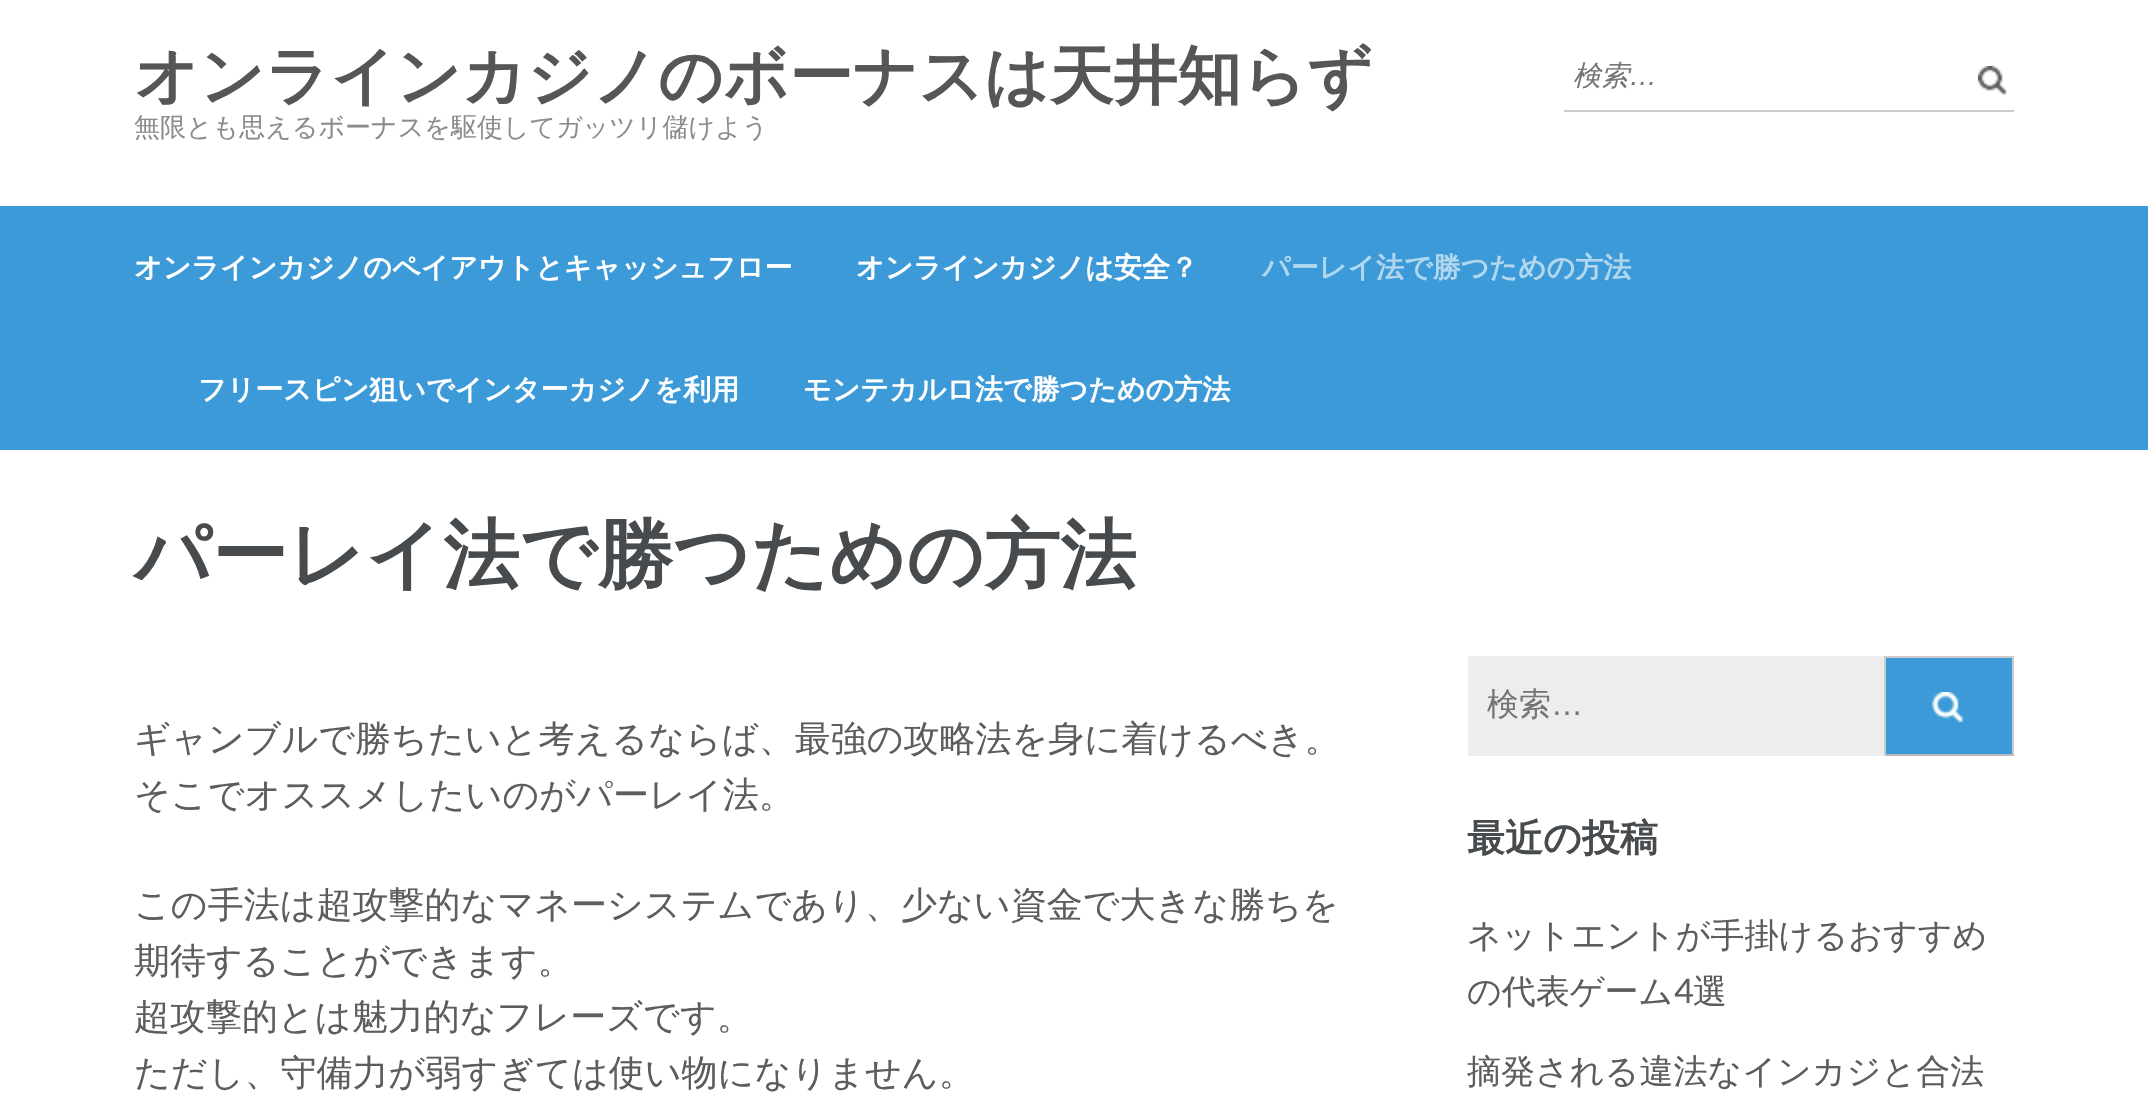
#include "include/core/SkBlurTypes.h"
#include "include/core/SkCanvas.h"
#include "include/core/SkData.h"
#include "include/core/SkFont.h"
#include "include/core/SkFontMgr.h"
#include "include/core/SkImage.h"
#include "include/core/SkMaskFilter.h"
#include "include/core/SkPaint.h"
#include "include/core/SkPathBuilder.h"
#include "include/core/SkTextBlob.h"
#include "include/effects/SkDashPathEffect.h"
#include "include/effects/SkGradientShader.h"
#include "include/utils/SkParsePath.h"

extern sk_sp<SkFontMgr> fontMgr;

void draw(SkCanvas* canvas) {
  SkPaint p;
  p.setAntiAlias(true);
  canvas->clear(SK_ColorWHITE);
  p.setColor(SkColorSetRGB(204, 204, 204));
  canvas->drawRect(SkRect::MakeLTRB(1564, 110, 2014, 112), p);
  canvas->drawImageRect(SkImages::DeferredFromEncodedData(SkData::MakeFromFileName("images/1.png")), SkRect::MakeLTRB(1978, 66, 2007, 95), SkSamplingOptions());
  p.setColor(SkColorSetRGB(59, 154, 215));
  canvas->drawRect(SkRect::MakeLTRB(0, 206, 2148, 450), p);
  p.setColor(SkColorSetRGB(237, 237, 237));
  canvas->drawRect(SkRect::MakeLTRB(1468, 656, 1884, 756), p);
  p.setColor(SkColorSetRGB(59, 154, 215));
  canvas->drawRect(SkRect::MakeLTRB(1886, 658, 2012, 754), p);
  canvas->drawImageRect(SkImages::DeferredFromEncodedData(SkData::MakeFromFileName("images/2.png")), SkRect::MakeLTRB(1932, 692, 1964, 722), SkSamplingOptions());
  p.setColor(SkColorSetRGB(204, 204, 204));
  canvas->drawRect(SkRect::MakeLTRB(1884, 656, 2014, 658), p);
  canvas->drawRect(SkRect::MakeLTRB(2012, 656, 2014, 756), p);
  p.setColor(SkColorSetRGB(187, 187, 187));
  canvas->drawRect(SkRect::MakeLTRB(1884, 754, 2014, 756), p);
  p.setColor(SkColorSetRGB(204, 204, 204));
  canvas->drawRect(SkRect::MakeLTRB(1884, 656, 1886, 756), p);
  SkFont font1(fontMgr->matchFamilyStyle("WenQuanYi Zen Hei", SkFontStyle::Bold()), 64);
  font1.setSubpixel(true);
  p.setColor(SkColorSetRGB(85, 86, 88));
  canvas->drawString("オンラインカジノのボーナスは天井知らず", 134, 98, font1, p);
  SkFont font2(fontMgr->matchFamilyStyle("WenQuanYi Zen Hei", SkFontStyle(500, SkFontStyle::kNormal_Width, SkFontStyle::kUpright_Slant)), 26);
  font2.setSubpixel(true);
  p.setColor(SkColorSetRGB(140, 140, 140));
  canvas->drawString("無限とも思えるボーナスを駆使してガッツリ儲けよう", 134, 136, font2, p);
  SkFont font3(fontMgr->matchFamilyStyle("WenQuanYi Zen Hei", SkFontStyle(500, SkFontStyle::kNormal_Width, SkFontStyle::kItalic_Slant)), 28);
  font3.setSubpixel(true);
  p.setColor(SkColorSetRGB(117, 117, 117));
  canvas->drawString("検索", 1573, 85, font3, p);
  SkFont font4(fontMgr->matchFamilyStyle("Liberation Sans", SkFontStyle::Italic()), 28);
  font4.setSubpixel(true);
  canvas->drawString("…", 1629, 85, font4, p);
  SkFont font5(fontMgr->matchFamilyStyle("WenQuanYi Zen Hei", SkFontStyle::Bold()), 28);
  font5.setSubpixel(true);
  p.setColor(SK_ColorWHITE);
  canvas->drawString("オンラインカジノのペイアウトとキャッシュフロー", 134, 277, font5, p);
  canvas->drawString("オンラインカジノは安全？", 856, 277, font5, p);
  p.setColor(SkColorSetRGB(177, 215, 239));
  canvas->drawString("パーレイ法で勝つための方法", 1262, 277, font5, p);
  p.setColor(SK_ColorWHITE);
  canvas->drawString("フリースピン狙いでインターカジノを利用", 198, 399, font5, p);
  canvas->drawString("モンテカルロ法で勝つための方法", 803, 399, font5, p);
  SkFont font6(fontMgr->matchFamilyStyle("WenQuanYi Zen Hei", SkFontStyle::Bold()), 76);
  font6.setSubpixel(true);
  p.setColor(SkColorSetRGB(71, 75, 78));
  canvas->drawString("パーレイ法で勝つための方法", 134, 581, font6, p);
  SkFont font7(fontMgr->matchFamilyStyle("WenQuanYi Zen Hei", SkFontStyle(500, SkFontStyle::kNormal_Width, SkFontStyle::kUpright_Slant)), 36);
  font7.setSubpixel(true);
  p.setColor(SkColorSetRGB(93, 93, 93));
  canvas->drawString("ギャンブルで勝ちたいと考えるならば、最強の攻略法を身に着けるべき。", 134, 751, font7, p);
  canvas->drawString("そこでオススメしたいのがパーレイ法。", 134, 807, font7, p);
  canvas->drawString("この手法は超攻撃的なマネーシステムであり、少ない資金で大きな勝ちを", 134, 917, font7, p);
  canvas->drawString("期待することができます。", 134, 973, font7, p);
  canvas->drawString("超攻撃的とは魅力的なフレーズです。", 134, 1029, font7, p);
  canvas->drawString("ただし、守備力が弱すぎては使い物になりません。", 134, 1085, font7, p);
  SkFont font8(fontMgr->matchFamilyStyle("WenQuanYi Zen Hei", SkFontStyle(500, SkFontStyle::kNormal_Width, SkFontStyle::kUpright_Slant)), 32);
  font8.setSubpixel(true);
  p.setColor(SkColorSetRGB(117, 117, 117));
  canvas->drawString("検索", 1487, 715, font8, p);
  SkFont font9(fontMgr->matchFamilyStyle("Liberation Sans", SkFontStyle::Normal()), 32);
  font9.setSubpixel(true);
  canvas->drawString("…", 1551, 715, font9, p);
  SkFont font10(fontMgr->matchFamilyStyle("WenQuanYi Zen Hei", SkFontStyle::Bold()), 38);
  font10.setSubpixel(true);
  p.setColor(SkColorSetRGB(71, 75, 78));
  canvas->drawString("最近の投稿", 1467, 851, font10, p);
  SkFont font11(fontMgr->matchFamilyStyle("WenQuanYi Zen Hei", SkFontStyle(500, SkFontStyle::kNormal_Width, SkFontStyle::kUpright_Slant)), 34);
  font11.setSubpixel(true);
  p.setColor(SkColorSetRGB(93, 93, 93));
  canvas->drawString("ネットエントが手掛けるおすすめ", 1467, 947, font11, p);
  canvas->drawString("の代表ゲーム", 1467, 1003, font11, p);
  SkFont font12(fontMgr->matchFamilyStyle("Lato", SkFontStyle::Normal()), 34);
  font12.setSubpixel(true);
  canvas->drawString("4", 1674, 1003, font12, p);
  canvas->drawString("選", 1693, 1003, font11, p);
  canvas->drawString("摘発される違法なインカジと合法", 1467, 1083, font11, p);
}
